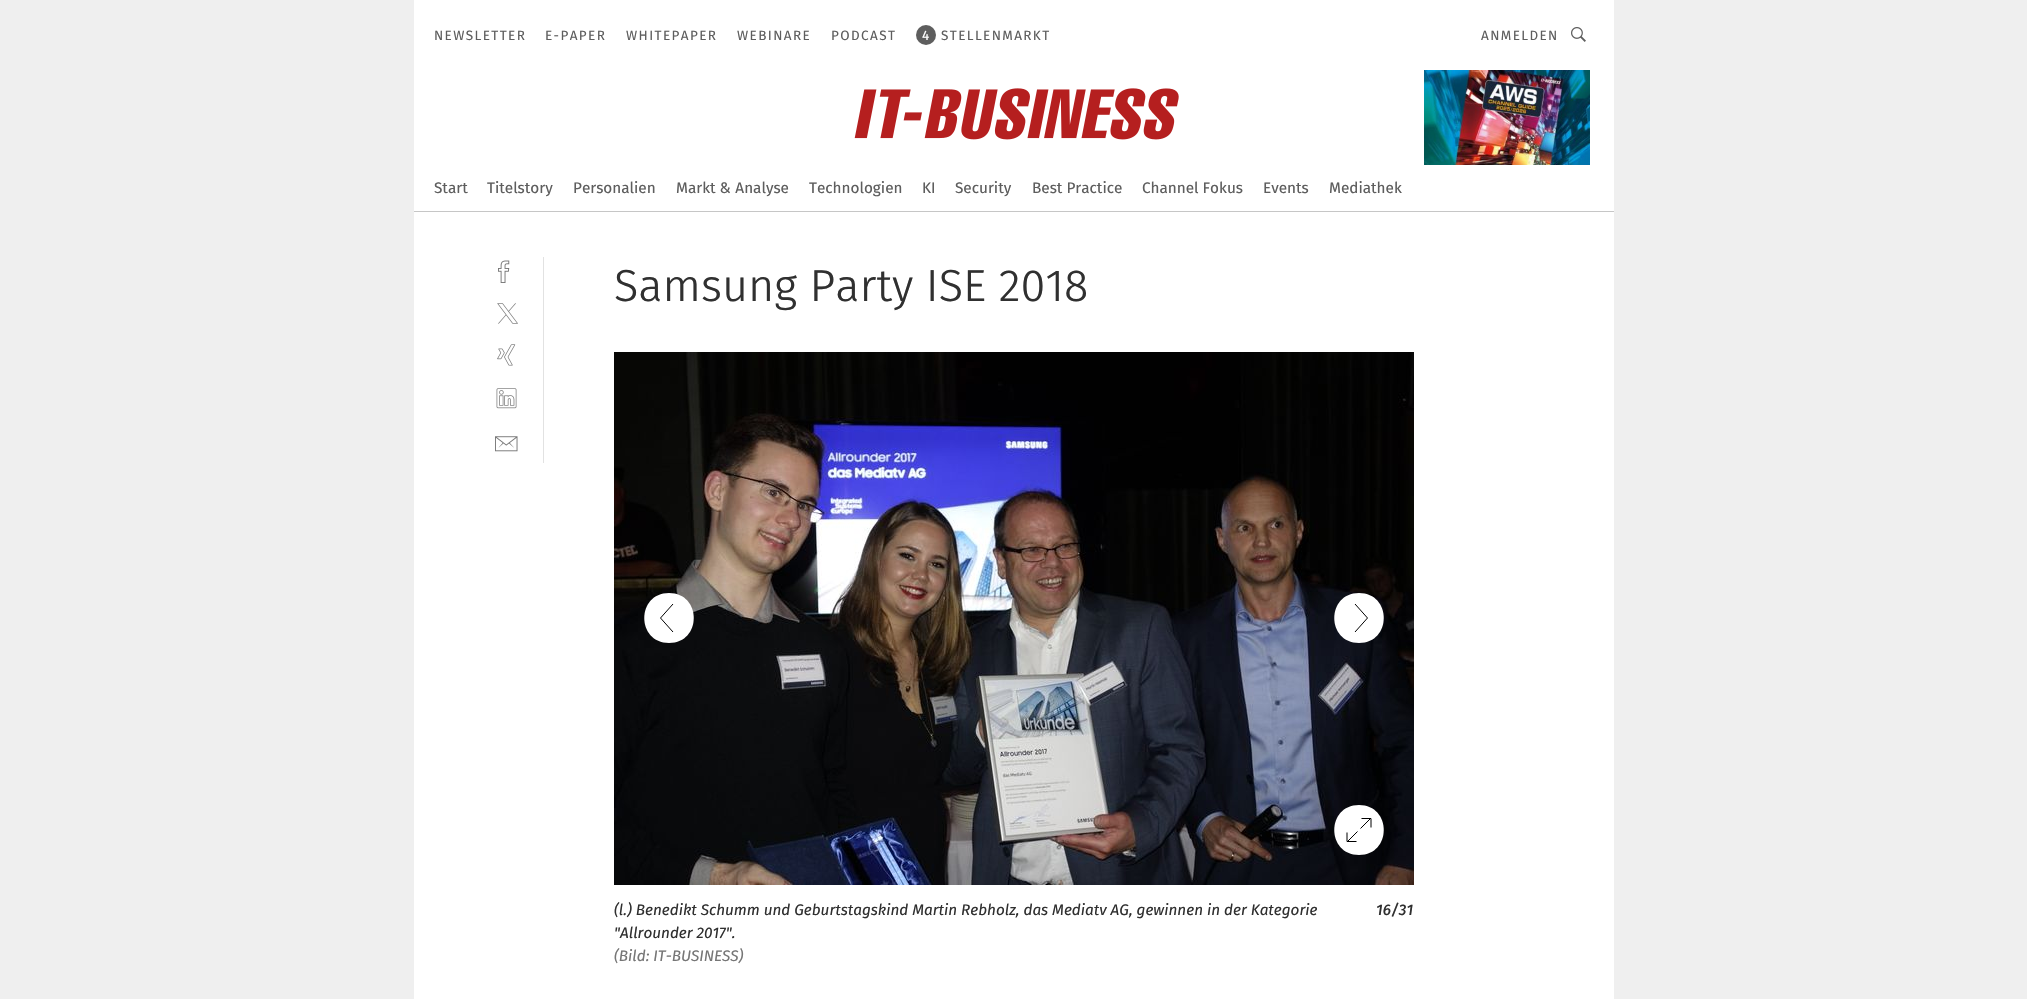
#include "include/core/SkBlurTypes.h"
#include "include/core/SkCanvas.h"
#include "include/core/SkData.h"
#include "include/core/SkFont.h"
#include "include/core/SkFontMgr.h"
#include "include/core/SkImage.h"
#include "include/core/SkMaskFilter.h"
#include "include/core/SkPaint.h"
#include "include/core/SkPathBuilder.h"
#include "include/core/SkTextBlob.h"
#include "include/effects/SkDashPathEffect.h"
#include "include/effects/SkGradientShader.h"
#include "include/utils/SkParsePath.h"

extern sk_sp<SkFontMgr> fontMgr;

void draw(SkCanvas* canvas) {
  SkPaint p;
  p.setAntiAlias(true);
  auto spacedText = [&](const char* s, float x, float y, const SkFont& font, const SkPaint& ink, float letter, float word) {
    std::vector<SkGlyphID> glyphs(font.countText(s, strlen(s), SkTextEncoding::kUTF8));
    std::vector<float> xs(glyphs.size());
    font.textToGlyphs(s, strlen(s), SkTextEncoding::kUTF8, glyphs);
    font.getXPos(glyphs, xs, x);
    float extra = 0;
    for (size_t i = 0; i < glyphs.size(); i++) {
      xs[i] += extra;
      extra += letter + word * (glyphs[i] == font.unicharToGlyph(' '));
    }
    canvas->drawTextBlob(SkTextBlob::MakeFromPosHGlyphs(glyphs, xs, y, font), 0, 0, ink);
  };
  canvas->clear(SkColorSetRGB(239, 239, 239));
  p.setColor(SK_ColorWHITE);
  canvas->drawRect(SkRect::MakeLTRB(414, 0, 1614, 999), p);
  p.setColor(SkColorSetRGB(198, 198, 198));
  canvas->drawRect(SkRect::MakeLTRB(414, 211, 1614, 212), p);
  p.setColor(SkColorSetRGB(94, 94, 94));
  canvas->drawCircle(926, 35, 10, p);
  canvas->drawImageRect(SkImages::DeferredFromEncodedData(SkData::MakeFromFileName("images/1.png")), SkRect::MakeLTRB(1571, 27, 1586, 42), SkSamplingOptions());
  canvas->drawImageRect(SkImages::DeferredFromEncodedData(SkData::MakeFromFileName("images/2.png")), SkRect::MakeLTRB(854, 88, 1179, 140), SkSamplingOptions());
  canvas->drawImageRect(SkImages::DeferredFromEncodedData(SkData::MakeFromFileName("images/3.png")), SkRect::MakeLTRB(1424, 70, 1590, 165), SkSamplingOptions());
  p.setColor(SkColorSetRGB(226, 226, 226));
  canvas->drawRect(SkRect::MakeLTRB(543, 257, 544, 463), p);
  canvas->drawImageRect(SkImages::DeferredFromEncodedData(SkData::MakeFromFileName("images/4.png")), SkRect::MakeLTRB(498, 260, 510, 283), SkSamplingOptions());
  canvas->drawImageRect(SkImages::DeferredFromEncodedData(SkData::MakeFromFileName("images/5.png")), SkRect::MakeLTRB(497, 303, 518, 324), SkSamplingOptions());
  canvas->drawImageRect(SkImages::DeferredFromEncodedData(SkData::MakeFromFileName("images/6.png")), SkRect::MakeLTRB(497, 344, 516, 366), SkSamplingOptions());
  canvas->drawImageRect(SkImages::DeferredFromEncodedData(SkData::MakeFromFileName("images/7.png")), SkRect::MakeLTRB(496, 388, 517, 409), SkSamplingOptions());
  canvas->drawImageRect(SkImages::DeferredFromEncodedData(SkData::MakeFromFileName("images/8.png")), SkRect::MakeLTRB(495, 436, 518, 452), SkSamplingOptions());
  canvas->drawImageRect(SkImages::DeferredFromEncodedData(SkData::MakeFromFileName("images/9.png")), SkRect::MakeLTRB(614, 352, 1414, 885), SkSamplingOptions());
  p.setColor(SK_ColorWHITE);
  canvas->drawPath(SkPathBuilder().moveTo(669, 643).cubicTo(702, 643, 702, 593, 669, 593).cubicTo(636, 593, 636, 643, 669, 643).detach(), p);
  p.setStyle(SkPaint::kStroke_Style);
  p.setStrokeWidth(1);
  p.setColor(SK_ColorBLACK);
  canvas->drawPath(SkPathBuilder().moveTo(673, 604).lineTo(660.5f, 618).lineTo(673, 632).detach(), p);
  p.setStyle(SkPaint::kFill_Style);
  p.setColor(SK_ColorWHITE);
  canvas->drawPath(SkPathBuilder().moveTo(1359, 593).cubicTo(1326, 593, 1326, 643, 1359, 643).cubicTo(1392, 643, 1392, 593, 1359, 593).detach(), p);
  p.setStyle(SkPaint::kStroke_Style);
  p.setColor(SK_ColorBLACK);
  canvas->drawPath(SkPathBuilder().moveTo(1355, 632).lineTo(1367.5f, 618).lineTo(1355, 604).detach(), p);
  p.setStyle(SkPaint::kFill_Style);
  p.setColor(SK_ColorWHITE);
  canvas->drawPath(SkPathBuilder().moveTo(1359, 855).cubicTo(1392, 855, 1392, 805, 1359, 805).cubicTo(1326, 805, 1326, 855, 1359, 855).detach(), p);
  p.setStyle(SkPaint::kStroke_Style);
  p.setColor(SK_ColorBLACK);
  canvas->drawPath(SkPathBuilder().moveTo(1371, 827.5f).lineTo(1371, 818.5f).lineTo(1361.5f, 818.5f).moveTo(1347, 832.5f).lineTo(1347, 841.5f).lineTo(1356.5f, 841.5f).moveTo(1370.5f, 818.5f).lineTo(1360.5f, 828.5f).moveTo(1357.5f, 831.5f).lineTo(1347.5f, 841.5f).detach(), p);
  SkFont font1(fontMgr->matchFamilyStyle("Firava", SkFontStyle::Normal()), 13.5f);
  font1.setSubpixel(true);
  p.setStyle(SkPaint::kFill_Style);
  p.setColor(SkColorSetRGB(94, 94, 94));
  spacedText("NEWSLETTER", 434, 40, font1, p, 1.4f, 0);
  spacedText("E-PAPER", 545, 40, font1, p, 1.4f, 0);
  spacedText("WHITEPAPER", 626, 40, font1, p, 1.4f, 0);
  spacedText("WEBINARE", 737, 40, font1, p, 1.4f, 0);
  spacedText("PODCAST", 831, 40, font1, p, 1.4f, 0);
  p.setColor(SK_ColorWHITE);
  spacedText("4", 922, 40, font1, p, 1.4f, 0);
  p.setColor(SkColorSetRGB(94, 94, 94));
  spacedText("STELLENMARKT", 941, 40, font1, p, 1.4f, 0);
  spacedText("ANMELDEN", 1481, 40, font1, p, 1.4f, 0);
  SkFont font2(fontMgr->matchFamilyStyle("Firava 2", SkFontStyle::Normal()), 15.3f);
  font2.setSubpixel(true);
  canvas->drawString("Start", 434, 193, font2, p);
  canvas->drawString("Titelstory", 487, 193, font2, p);
  canvas->drawString("Personalien", 573, 193, font2, p);
  canvas->drawString("Markt & Analyse", 676, 193, font2, p);
  canvas->drawString("Technologien", 809, 193, font2, p);
  canvas->drawString("KI", 922, 193, font2, p);
  canvas->drawString("Security", 955, 193, font2, p);
  canvas->drawString("Best Practice", 1032, 193, font2, p);
  canvas->drawString("Channel Fokus", 1142, 193, font2, p);
  canvas->drawString("Events", 1263, 193, font2, p);
  canvas->drawString("Mediathek", 1329, 193, font2, p);
  SkFont font3(fontMgr->matchFamilyStyle("Firava", SkFontStyle(300, SkFontStyle::kNormal_Width, SkFontStyle::kUpright_Slant)), 45);
  font3.setSubpixel(true);
  p.setColor(SkColorSetRGB(48, 48, 48));
  canvas->drawString("Samsung Party ISE 2018", 614, 301, font3, p);
  SkFont font4(fontMgr->matchFamilyStyle("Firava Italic", SkFontStyle::Italic()), 15.3f);
  font4.setSubpixel(true);
  canvas->drawString("(l.) Benedikt Schumm und Geburtstagskind Martin Rebholz, das Mediatv AG, gewinnen in der Kategorie", 614, 915, font4, p);
  canvas->drawString("\"Allrounder 2017\".", 614, 938, font4, p);
  p.setColor(SkColorSetRGB(118, 118, 118));
  canvas->drawString("(Bild: IT-BUSINESS)", 614, 961, font4, p);
  SkFont font5(fontMgr->matchFamilyStyle("Firava Italic", SkFontStyle(500, SkFontStyle::kNormal_Width, SkFontStyle::kItalic_Slant)), 15.3f);
  font5.setSubpixel(true);
  p.setColor(SkColorSetRGB(48, 48, 48));
  canvas->drawString("16/31", 1376, 915, font5, p);
}
